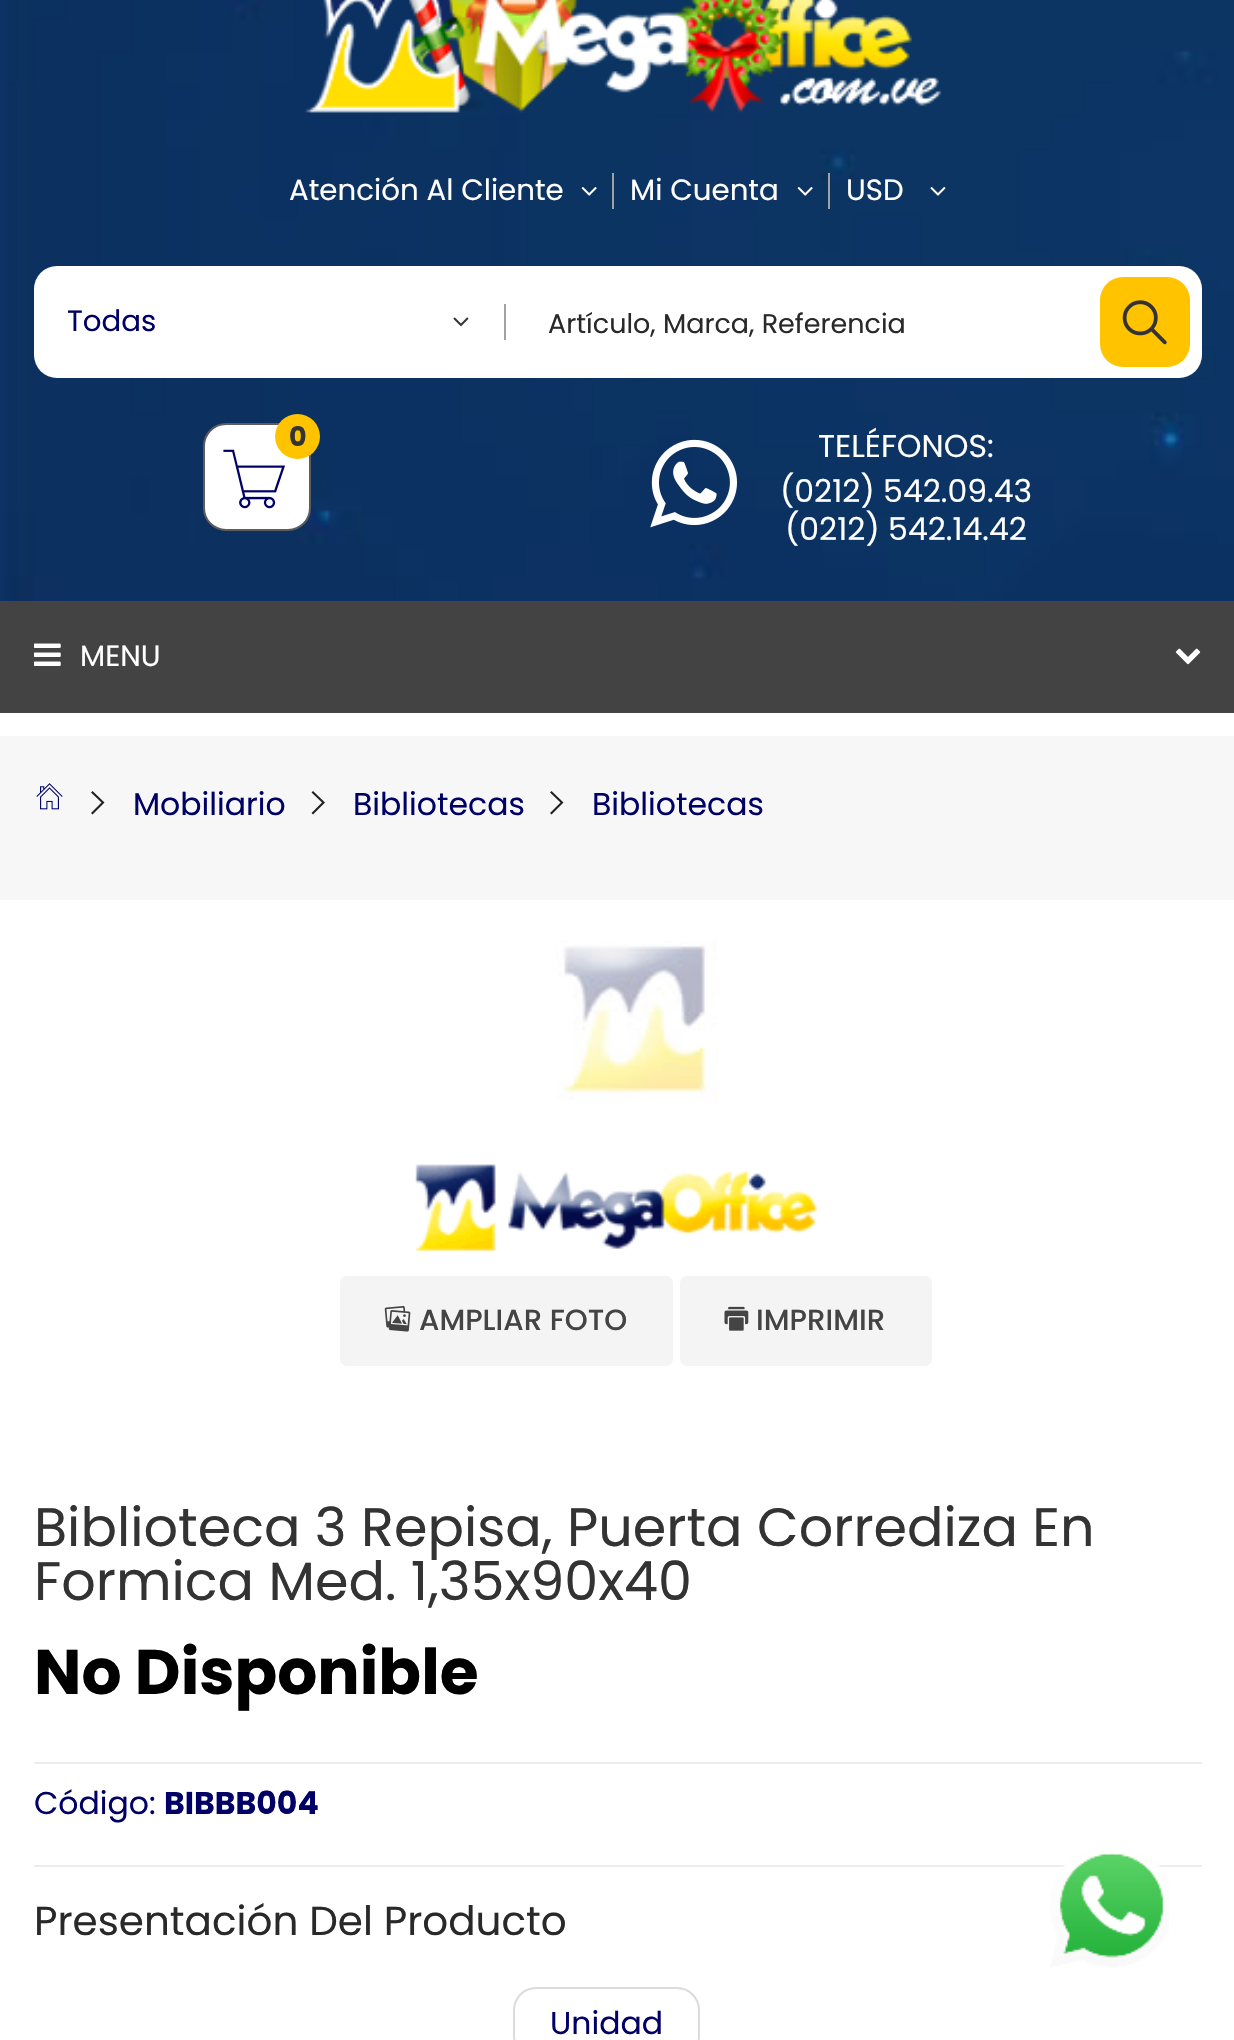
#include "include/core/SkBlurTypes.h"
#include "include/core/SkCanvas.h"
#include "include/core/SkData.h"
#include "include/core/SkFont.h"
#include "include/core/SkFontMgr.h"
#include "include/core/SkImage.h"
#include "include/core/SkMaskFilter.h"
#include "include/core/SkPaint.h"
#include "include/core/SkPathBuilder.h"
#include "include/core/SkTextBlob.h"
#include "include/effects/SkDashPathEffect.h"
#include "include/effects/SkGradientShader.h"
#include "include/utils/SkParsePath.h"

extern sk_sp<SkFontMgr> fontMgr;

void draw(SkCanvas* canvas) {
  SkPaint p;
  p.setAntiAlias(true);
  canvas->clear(SK_ColorWHITE);
  canvas->drawImageRect(SkImages::DeferredFromEncodedData(SkData::MakeFromFileName("images/1.png")), SkRect::MakeLTRB(0, 0, 1234, 601), SkSamplingOptions());
  canvas->drawImageRect(SkImages::DeferredFromEncodedData(SkData::MakeFromFileName("images/2.png")), SkRect::MakeLTRB(305, 0, 942, 113), SkSamplingOptions());
  canvas->drawImageRect(SkImages::DeferredFromEncodedData(SkData::MakeFromFileName("images/3.png")), SkRect::MakeLTRB(581, 187, 597, 196), SkSamplingOptions());
  p.setColor(SkColorSetRGB(161, 161, 161));
  canvas->drawRect(SkRect::MakeLTRB(612, 173, 614, 209), p);
  canvas->drawImageRect(SkImages::DeferredFromEncodedData(SkData::MakeFromFileName("images/4.png")), SkRect::MakeLTRB(797, 187, 813, 196), SkSamplingOptions());
  canvas->drawRect(SkRect::MakeLTRB(828, 173, 830, 209), p);
  canvas->drawImageRect(SkImages::DeferredFromEncodedData(SkData::MakeFromFileName("images/5.png")), SkRect::MakeLTRB(930, 187, 946, 196), SkSamplingOptions());
  p.setColor(SK_ColorWHITE);
  canvas->drawRoundRect(SkRect::MakeLTRB(34, 266, 1202, 378), 23, 23, p);
  canvas->drawImageRect(SkImages::DeferredFromEncodedData(SkData::MakeFromFileName("images/6.png")), SkRect::MakeLTRB(453, 317, 469, 327), SkSamplingOptions());
  p.setColor(SkColorSetRGB(161, 161, 161));
  canvas->drawRect(SkRect::MakeLTRB(504, 304, 506, 340), p);
  p.setColor(SkColorSetRGB(255, 195, 0));
  canvas->drawRoundRect(SkRect::MakeLTRB(1100, 277, 1190, 367), 23, 23, p);
  canvas->drawImageRect(SkImages::DeferredFromEncodedData(SkData::MakeFromFileName("images/7.png")), SkRect::MakeLTRB(1122, 300, 1167, 345), SkSamplingOptions());
  p.setColor(SK_ColorWHITE);
  canvas->drawRoundRect(SkRect::MakeLTRB(204, 424, 310, 530), 22, 22, p);
  p.setStyle(SkPaint::kStroke_Style);
  p.setStrokeWidth(2);
  p.setColor(SkColorSetRGB(92, 92, 92));
  canvas->drawRoundRect(SkRect::MakeLTRB(204, 424, 310, 530), 22, 22, p);
  canvas->drawImageRect(SkImages::DeferredFromEncodedData(SkData::MakeFromFileName("images/8.png")), SkRect::MakeLTRB(223, 449, 285, 509), SkSamplingOptions());
  p.setStyle(SkPaint::kFill_Style);
  p.setColor(SkColorSetRGB(255, 195, 0));
  canvas->drawCircle(297.5f, 436.5f, 22.5f, p);
  canvas->drawImageRect(SkImages::DeferredFromEncodedData(SkData::MakeFromFileName("images/9.png")), SkRect::MakeLTRB(650, 439, 738, 528), SkSamplingOptions());
  p.setColor(SkColorSetRGB(67, 67, 67));
  canvas->drawRect(SkRect::MakeLTRB(0, 601, 1234, 713), p);
  canvas->drawImageRect(SkImages::DeferredFromEncodedData(SkData::MakeFromFileName("images/10.png")), SkRect::MakeLTRB(34, 643, 61, 666), SkSamplingOptions());
  canvas->drawImageRect(SkImages::DeferredFromEncodedData(SkData::MakeFromFileName("images/11.png")), SkRect::MakeLTRB(1175, 648, 1201, 665), SkSamplingOptions());
  p.setColor(SkColorSetRGB(247, 247, 247));
  canvas->drawRect(SkRect::MakeLTRB(0, 736, 1234, 900), p);
  canvas->drawImageRect(SkImages::DeferredFromEncodedData(SkData::MakeFromFileName("images/12.png")), SkRect::MakeLTRB(36, 783, 63, 810), SkSamplingOptions());
  p.setColor(SkColorSetRGB(34, 34, 34));
  canvas->drawPath(SkPathBuilder().moveTo(103, 804).lineTo(104.5f, 802.5f).lineTo(92.5f, 791).lineTo(91, 792.5f).lineTo(101.5f, 802.5f).lineTo(91, 813).lineTo(92.5f, 814.5f).close().detach(), p);
  canvas->drawPath(SkPathBuilder().moveTo(323.5f, 804).lineTo(325, 802.5f).lineTo(313, 791).lineTo(311.5f, 792.5f).lineTo(322, 802.5f).lineTo(311.5f, 813).lineTo(313, 814.5f).close().detach(), p);
  canvas->drawPath(SkPathBuilder().moveTo(562, 804).lineTo(563.5f, 802.5f).lineTo(551.5f, 791).lineTo(550, 792.5f).lineTo(560.5f, 802.5f).lineTo(550, 813).lineTo(551.5f, 814.5f).close().detach(), p);
  canvas->drawImageRect(SkImages::DeferredFromEncodedData(SkData::MakeFromFileName("images/13.png")), SkRect::MakeLTRB(555, 941, 718, 1100), SkSamplingOptions());
  canvas->drawImageRect(SkImages::DeferredFromEncodedData(SkData::MakeFromFileName("images/14.png")), SkRect::MakeLTRB(415, 1164, 818, 1252), SkSamplingOptions());
  p.setColor(SkColorSetRGB(244, 244, 244));
  canvas->drawRoundRect(SkRect::MakeLTRB(340, 1276, 673, 1366), 7, 7, p);
  canvas->drawImageRect(SkImages::DeferredFromEncodedData(SkData::MakeFromFileName("images/15.png")), SkRect::MakeLTRB(384, 1306, 411, 1332), SkSamplingOptions());
  canvas->drawRoundRect(SkRect::MakeLTRB(680, 1276, 932, 1366), 7, 7, p);
  canvas->drawImageRect(SkImages::DeferredFromEncodedData(SkData::MakeFromFileName("images/16.png")), SkRect::MakeLTRB(724, 1306, 749, 1331), SkSamplingOptions());
  p.setColor(SkColorSetRGB(237, 237, 237));
  canvas->drawRect(SkRect::MakeLTRB(34, 1762, 1202, 1764), p);
  canvas->drawRect(SkRect::MakeLTRB(34, 1865, 1202, 1867), p);
  p.setStyle(SkPaint::kStroke_Style);
  p.setColor(SkColorSetRGB(219, 219, 219));
  canvas->drawRoundRect(SkRect::MakeLTRB(514, 1988, 699, 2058), 22, 22, p);
  canvas->drawImageRect(SkImages::DeferredFromEncodedData(SkData::MakeFromFileName("images/17.png")), SkRect::MakeLTRB(1050, 1852, 1169, 1968), SkSamplingOptions());
  SkFont font1(fontMgr->matchFamilyStyle("Poppins", SkFontStyle::Normal()), 29.25f);
  font1.setSubpixel(true);
  p.setStyle(SkPaint::kFill_Style);
  p.setColor(SK_ColorWHITE);
  canvas->drawString("Atención Al Cliente", 289, 200, font1, p);
  canvas->drawString("Mi Cuenta", 630, 200, font1, p);
  canvas->drawString("USD", 846, 200, font1, p);
  p.setColor(SkColorSetRGB(0, 0, 102));
  canvas->drawString("Todas", 67, 331, font1, p);
  SkFont font2(fontMgr->matchFamilyStyle("Poppins", SkFontStyle::Normal()), 27);
  font2.setSubpixel(true);
  p.setColor(SkColorSetRGB(41, 41, 41));
  canvas->drawString("Artículo, Marca, Referencia", 548, 333, font2, p);
  SkFont font3(fontMgr->matchFamilyStyle("Poppins", SkFontStyle::Bold()), 27);
  font3.setSubpixel(true);
  p.setColor(SkColorSetRGB(51, 51, 51));
  canvas->drawString("0", 289, 446, font3, p);
  SkFont font4(fontMgr->matchFamilyStyle("Poppins", SkFontStyle::Normal()), 31.5f);
  font4.setSubpixel(true);
  p.setColor(SK_ColorWHITE);
  canvas->drawString("TELÉFONOS:", 818, 457, font4, p);
  canvas->drawString("(0212) 542.09.43", 780, 502, font4, p);
  canvas->drawString("(0212) 542.14.42", 785, 540, font4, p);
  canvas->drawString("MENU", 80, 666, font1, p);
  p.setColor(SkColorSetRGB(0, 0, 102));
  canvas->drawString("Mobiliario", 133, 815, font4, p);
  canvas->drawString("Bibliotecas", 353, 815, font4, p);
  canvas->drawString("Bibliotecas", 592, 815, font4, p);
  SkFont font5(fontMgr->matchFamilyStyle("Poppins", SkFontStyle(500, SkFontStyle::kNormal_Width, SkFontStyle::kUpright_Slant)), 29.25f);
  font5.setSubpixel(true);
  p.setColor(SkColorSetRGB(68, 68, 68));
  canvas->drawString("AMPLIAR FOTO", 419, 1330, font5, p);
  canvas->drawString("IMPRIMIR", 756, 1330, font5, p);
  SkFont font6(fontMgr->matchFamilyStyle("Poppins", SkFontStyle::Normal()), 54);
  font6.setSubpixel(true);
  p.setColor(SkColorSetRGB(51, 51, 51));
  canvas->drawString("Biblioteca 3 Repisa, Puerta Corrediza En", 34, 1546, font6, p);
  canvas->drawString("Formica Med. 1,35x90x40", 34, 1600, font6, p);
  SkFont font7(fontMgr->matchFamilyStyle("Poppins", SkFontStyle::Bold()), 63);
  font7.setSubpixel(true);
  p.setColor(SK_ColorBLACK);
  canvas->drawString("No Disponible", 34, 1694, font7, p);
  p.setColor(SkColorSetRGB(0, 0, 102));
  canvas->drawString("Código:", 34, 1814, font4, p);
  SkFont font8(fontMgr->matchFamilyStyle("Poppins", SkFontStyle::Bold()), 31.5f);
  font8.setSubpixel(true);
  canvas->drawString("BIBBB004", 164, 1814, font8, p);
  SkFont font9(fontMgr->matchFamilyStyle("Poppins", SkFontStyle::Normal()), 40.5f);
  font9.setSubpixel(true);
  p.setColor(SkColorSetRGB(41, 41, 41));
  canvas->drawString("Presentación Del Producto", 34, 1935, font9, p);
  p.setColor(SkColorSetRGB(0, 0, 102));
  canvas->drawString("Unidad", 550, 2034, font4, p);
}
